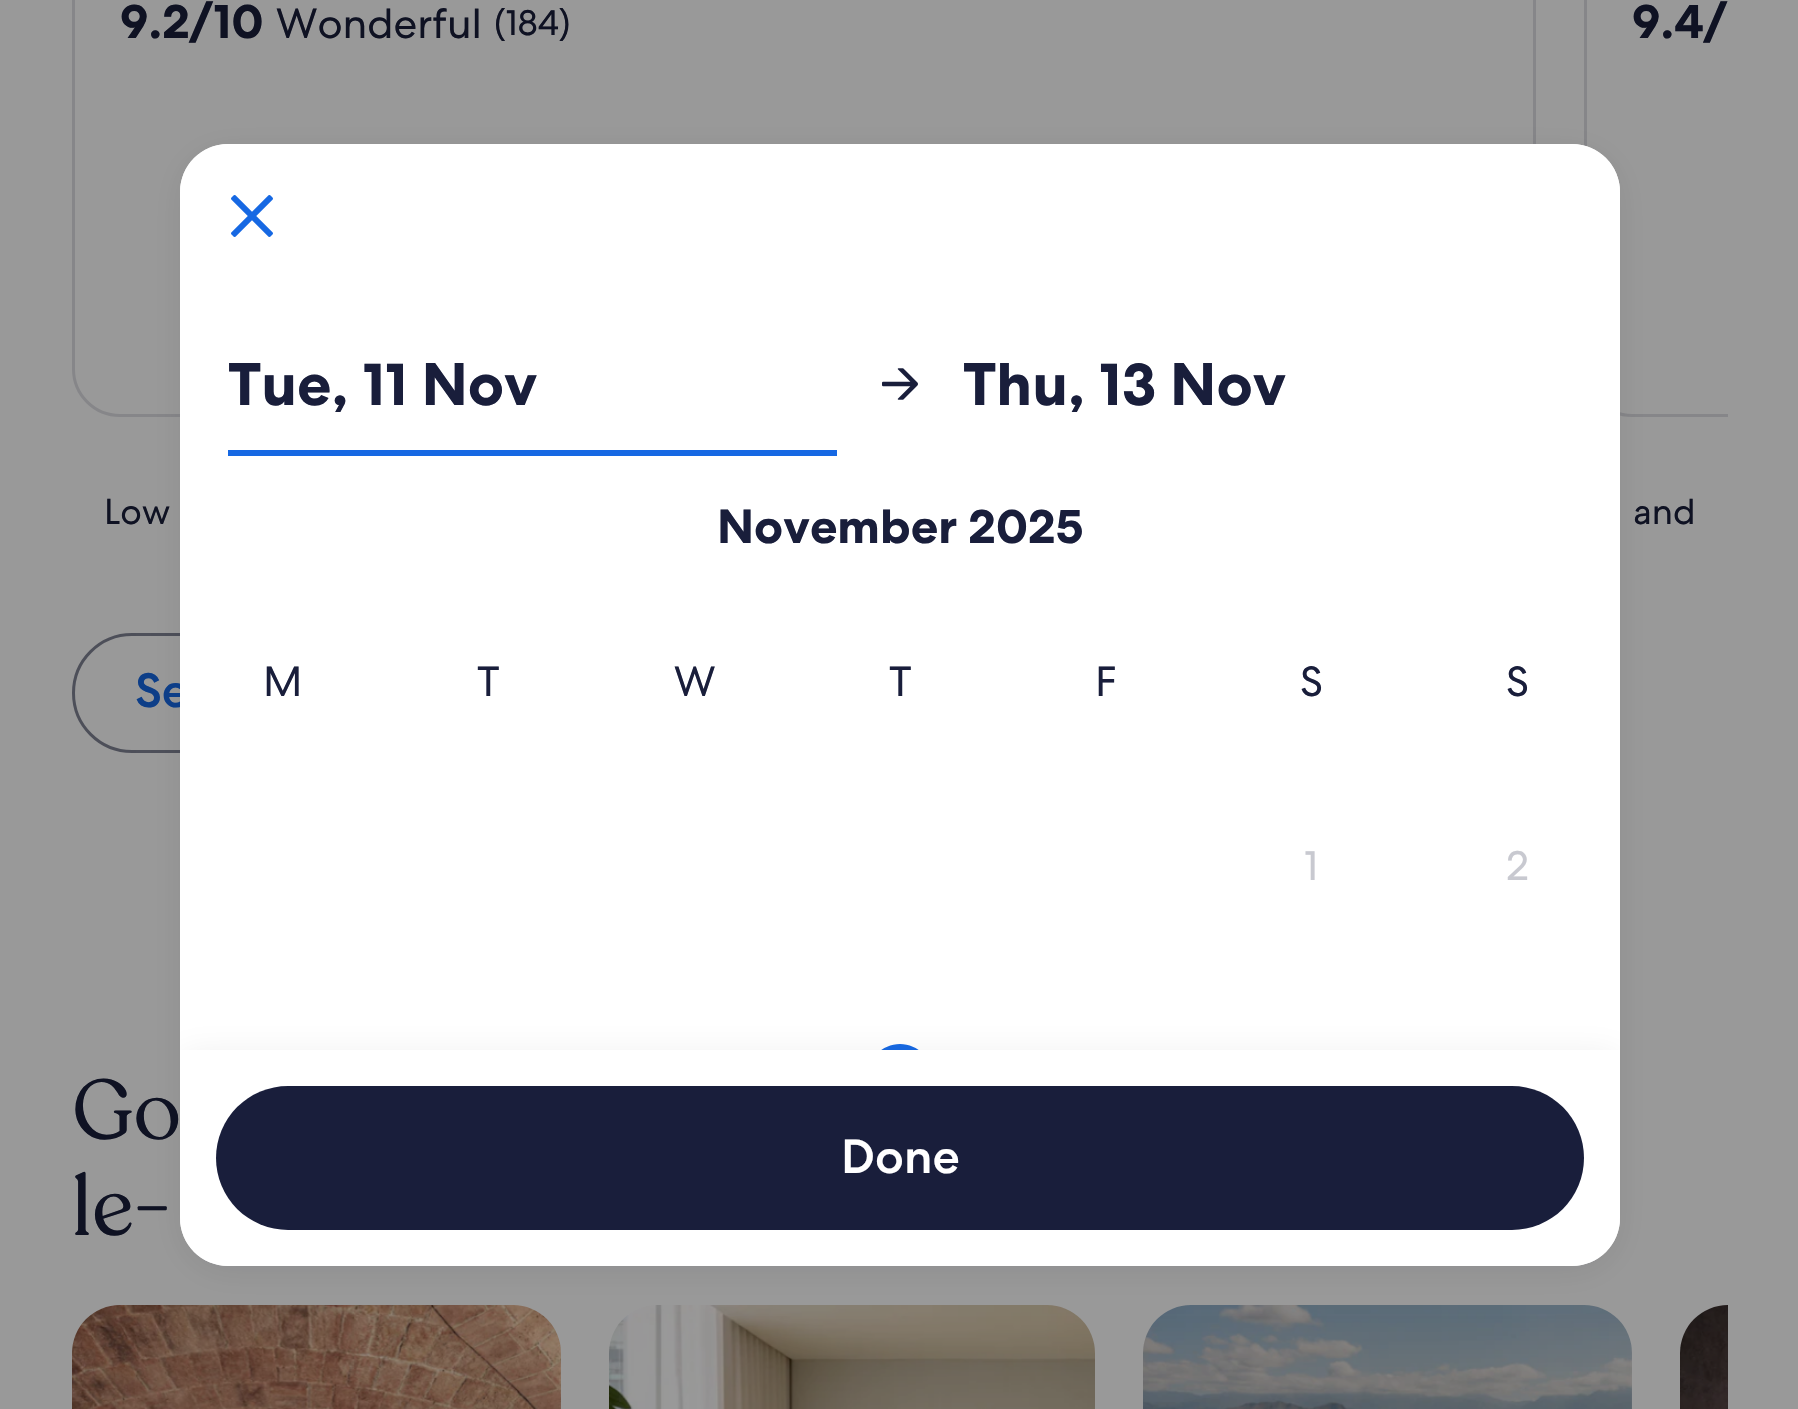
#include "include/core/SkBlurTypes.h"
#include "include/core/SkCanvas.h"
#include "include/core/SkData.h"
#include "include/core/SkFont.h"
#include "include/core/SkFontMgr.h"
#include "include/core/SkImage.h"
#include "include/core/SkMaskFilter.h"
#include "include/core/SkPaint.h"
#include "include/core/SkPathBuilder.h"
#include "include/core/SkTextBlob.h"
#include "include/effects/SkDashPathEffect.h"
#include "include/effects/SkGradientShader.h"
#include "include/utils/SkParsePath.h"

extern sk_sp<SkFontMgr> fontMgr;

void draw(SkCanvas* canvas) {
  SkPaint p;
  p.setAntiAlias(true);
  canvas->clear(SkColorSetRGB(153, 153, 153));
  p.setStyle(SkPaint::kStroke_Style);
  p.setStrokeWidth(3);
  p.setColor(SkColorSetRGB(134, 134, 137));
  canvas->drawRoundRect(SkRect::MakeLTRB(73.5f, -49.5f, 1534.5f, 415.5f), 46.5f, 46.5f, p);
  canvas->save();
  canvas->clipRect(SkRect::MakeLTRB(72, 0, 1728, 417));
  canvas->drawRoundRect(SkRect::MakeLTRB(1585.5f, -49.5f, 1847.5f, 415.5f), 46.5f, 46.5f, p);
  canvas->restore();
  p.setColor(SkColorSetRGB(77, 79, 89));
  canvas->drawRoundRect(SkRect::MakeLTRB(73.5f, 634.5f, 727.5f, 751.5f), 58.5f, 58.5f, p);
  canvas->drawImageRect(SkImages::DeferredFromEncodedData(SkData::MakeFromFileName("images/1.png")), SkRect::MakeLTRB(72, 1305, 561, 1409), SkSamplingOptions());
  canvas->drawImageRect(SkImages::DeferredFromEncodedData(SkData::MakeFromFileName("images/2.png")), SkRect::MakeLTRB(609, 1305, 1095, 1409), SkSamplingOptions());
  canvas->drawImageRect(SkImages::DeferredFromEncodedData(SkData::MakeFromFileName("images/3.png")), SkRect::MakeLTRB(1143, 1305, 1632, 1409), SkSamplingOptions());
  canvas->drawImageRect(SkImages::DeferredFromEncodedData(SkData::MakeFromFileName("images/4.png")), SkRect::MakeLTRB(1680, 1305, 1728, 1409), SkSamplingOptions());
  p.setStyle(SkPaint::kFill_Style);
  p.setColor(SkColorSetARGB(20, 12, 14, 28));
  p.setMaskFilter(SkMaskFilter::MakeBlur(kNormal_SkBlurStyle, 18));
  canvas->drawRoundRect(SkRect::MakeLTRB(180, 150, 1620, 1272), 48, 48, p);
  p.setMaskFilter(nullptr);
  SkFont font1(fontMgr->matchFamilyStyle("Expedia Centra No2", SkFontStyle::Bold()), 48);
  font1.setSubpixel(true);
  p.setColor(SkColorSetRGB(15, 18, 35));
  canvas->drawString("9.2/10", 120, 38, font1, p);
  SkFont font2(fontMgr->matchFamilyStyle("Expedia Centra No2", SkFontStyle::Normal()), 42);
  font2.setSubpixel(true);
  canvas->drawString("Wonderful", 276, 38, font2, p);
  SkFont font3(fontMgr->matchFamilyStyle("Expedia Centra No2", SkFontStyle::Normal()), 36);
  font3.setSubpixel(true);
  canvas->drawString("(184)", 494, 35, font3, p);
  canvas->drawString("9.4/", 1632, 38, font1, p);
  canvas->drawString("Low", 104, 524, font3, p);
  canvas->drawString("and", 1633, 524, font3, p);
  SkFont font4(fontMgr->matchFamilyStyle("Expedia Centra No2", SkFontStyle(500, SkFontStyle::kNormal_Width, SkFontStyle::kUpright_Slant)), 48);
  font4.setSubpixel(true);
  p.setColor(SkColorSetRGB(13, 62, 136));
  canvas->drawString("Se", 135, 707, font4, p);
  SkFont font5(fontMgr->matchFamilyStyle("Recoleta", SkFontStyle::Normal()), 84);
  font5.setSubpixel(true);
  p.setColor(SkColorSetRGB(15, 18, 35));
  canvas->drawString("Go", 72, 1139, font5, p);
  canvas->drawString("le-", 72, 1235, font5, p);
  p.setColor(SK_ColorWHITE);
  canvas->drawRoundRect(SkRect::MakeLTRB(180, 144, 1620, 1266), 48, 48, p);
  canvas->drawPath(SkPathBuilder().moveTo(228, 144).lineTo(1572, 144).cubicTo(1598.5f, 144, 1620, 165.5f, 1620, 192).lineTo(1620, 456).lineTo(180, 456).lineTo(180, 192).cubicTo(180, 165.5f, 201.5f, 144, 228, 144).close().detach(), p);
  canvas->drawImageRect(SkImages::DeferredFromEncodedData(SkData::MakeFromFileName("images/5.png")), SkRect::MakeLTRB(231, 195, 273, 237), SkSamplingOptions());
  p.setColor(SkColorSetRGB(22, 104, 227));
  canvas->drawRect(SkRect::MakeLTRB(228, 450, 837, 456), p);
  SkFont font6(fontMgr->matchFamilyStyle("Expedia Centra No2", SkFontStyle::Bold()), 60);
  font6.setSubpixel(true);
  p.setColor(SkColorSetRGB(25, 30, 59));
  canvas->drawString("Tue, 11 Nov", 228, 405, font6, p);
  canvas->drawImageRect(SkImages::DeferredFromEncodedData(SkData::MakeFromFileName("images/6.png")), SkRect::MakeLTRB(882, 368, 918, 400), SkSamplingOptions());
  canvas->drawString("Thu, 13 Nov", 963, 405, font6, p);
  canvas->drawString("November 2025", 717, 543, font1, p);
  canvas->drawString("M", 263, 696, font2, p);
  canvas->drawString("T", 477, 696, font2, p);
  canvas->drawString("W", 674, 696, font2, p);
  canvas->drawString("T", 889, 696, font2, p);
  canvas->drawString("F", 1095, 696, font2, p);
  canvas->drawString("S", 1300, 696, font2, p);
  canvas->drawString("S", 1506, 696, font2, p);
  p.setColor(SkColorSetRGB(200, 201, 208));
  canvas->drawString("1", 1304, 880, font2, p);
  canvas->drawString("2", 1506, 880, font2, p);
  p.setColor(SkColorSetRGB(22, 104, 227));
  canvas->drawPath(SkPathBuilder().moveTo(900, 1044).cubicTo(918, 1044, 933, 1059, 933, 1077).lineTo(933, 1050).lineTo(867, 1050).lineTo(867, 1077).cubicTo(867, 1059, 882, 1044, 900, 1044).close().detach(), p);
  canvas->save();
  canvas->clipPath(SkPathBuilder().moveTo(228, 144).lineTo(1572, 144).cubicTo(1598.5f, 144, 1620, 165.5f, 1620, 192).lineTo(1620, 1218).cubicTo(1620, 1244.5f, 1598.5f, 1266, 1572, 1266).lineTo(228, 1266).cubicTo(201.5f, 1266, 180, 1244.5f, 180, 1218).lineTo(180, 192).cubicTo(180, 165.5f, 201.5f, 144, 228, 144).close().detach(), true);
  p.setColor(SkColorSetARGB(20, 12, 14, 28));
  p.setMaskFilter(SkMaskFilter::MakeBlur(kNormal_SkBlurStyle, 18));
  canvas->drawRect(SkRect::MakeLTRB(180, 1056, 1620, 1272), p);
  p.setMaskFilter(nullptr);
  canvas->restore();
  p.setColor(SK_ColorWHITE);
  canvas->drawPath(SkPathBuilder().moveTo(180, 1050).lineTo(1620, 1050).lineTo(1620, 1218).cubicTo(1620, 1244.5f, 1598.5f, 1266, 1572, 1266).lineTo(228, 1266).cubicTo(201.5f, 1266, 180, 1244.5f, 180, 1218).close().detach(), p);
  p.setColor(SkColorSetRGB(25, 30, 59));
  canvas->drawRoundRect(SkRect::MakeLTRB(216, 1086, 1584, 1230), 72, 72, p);
  p.setColor(SK_ColorWHITE);
  canvas->drawString("Done", 841, 1173, font4, p);
}
